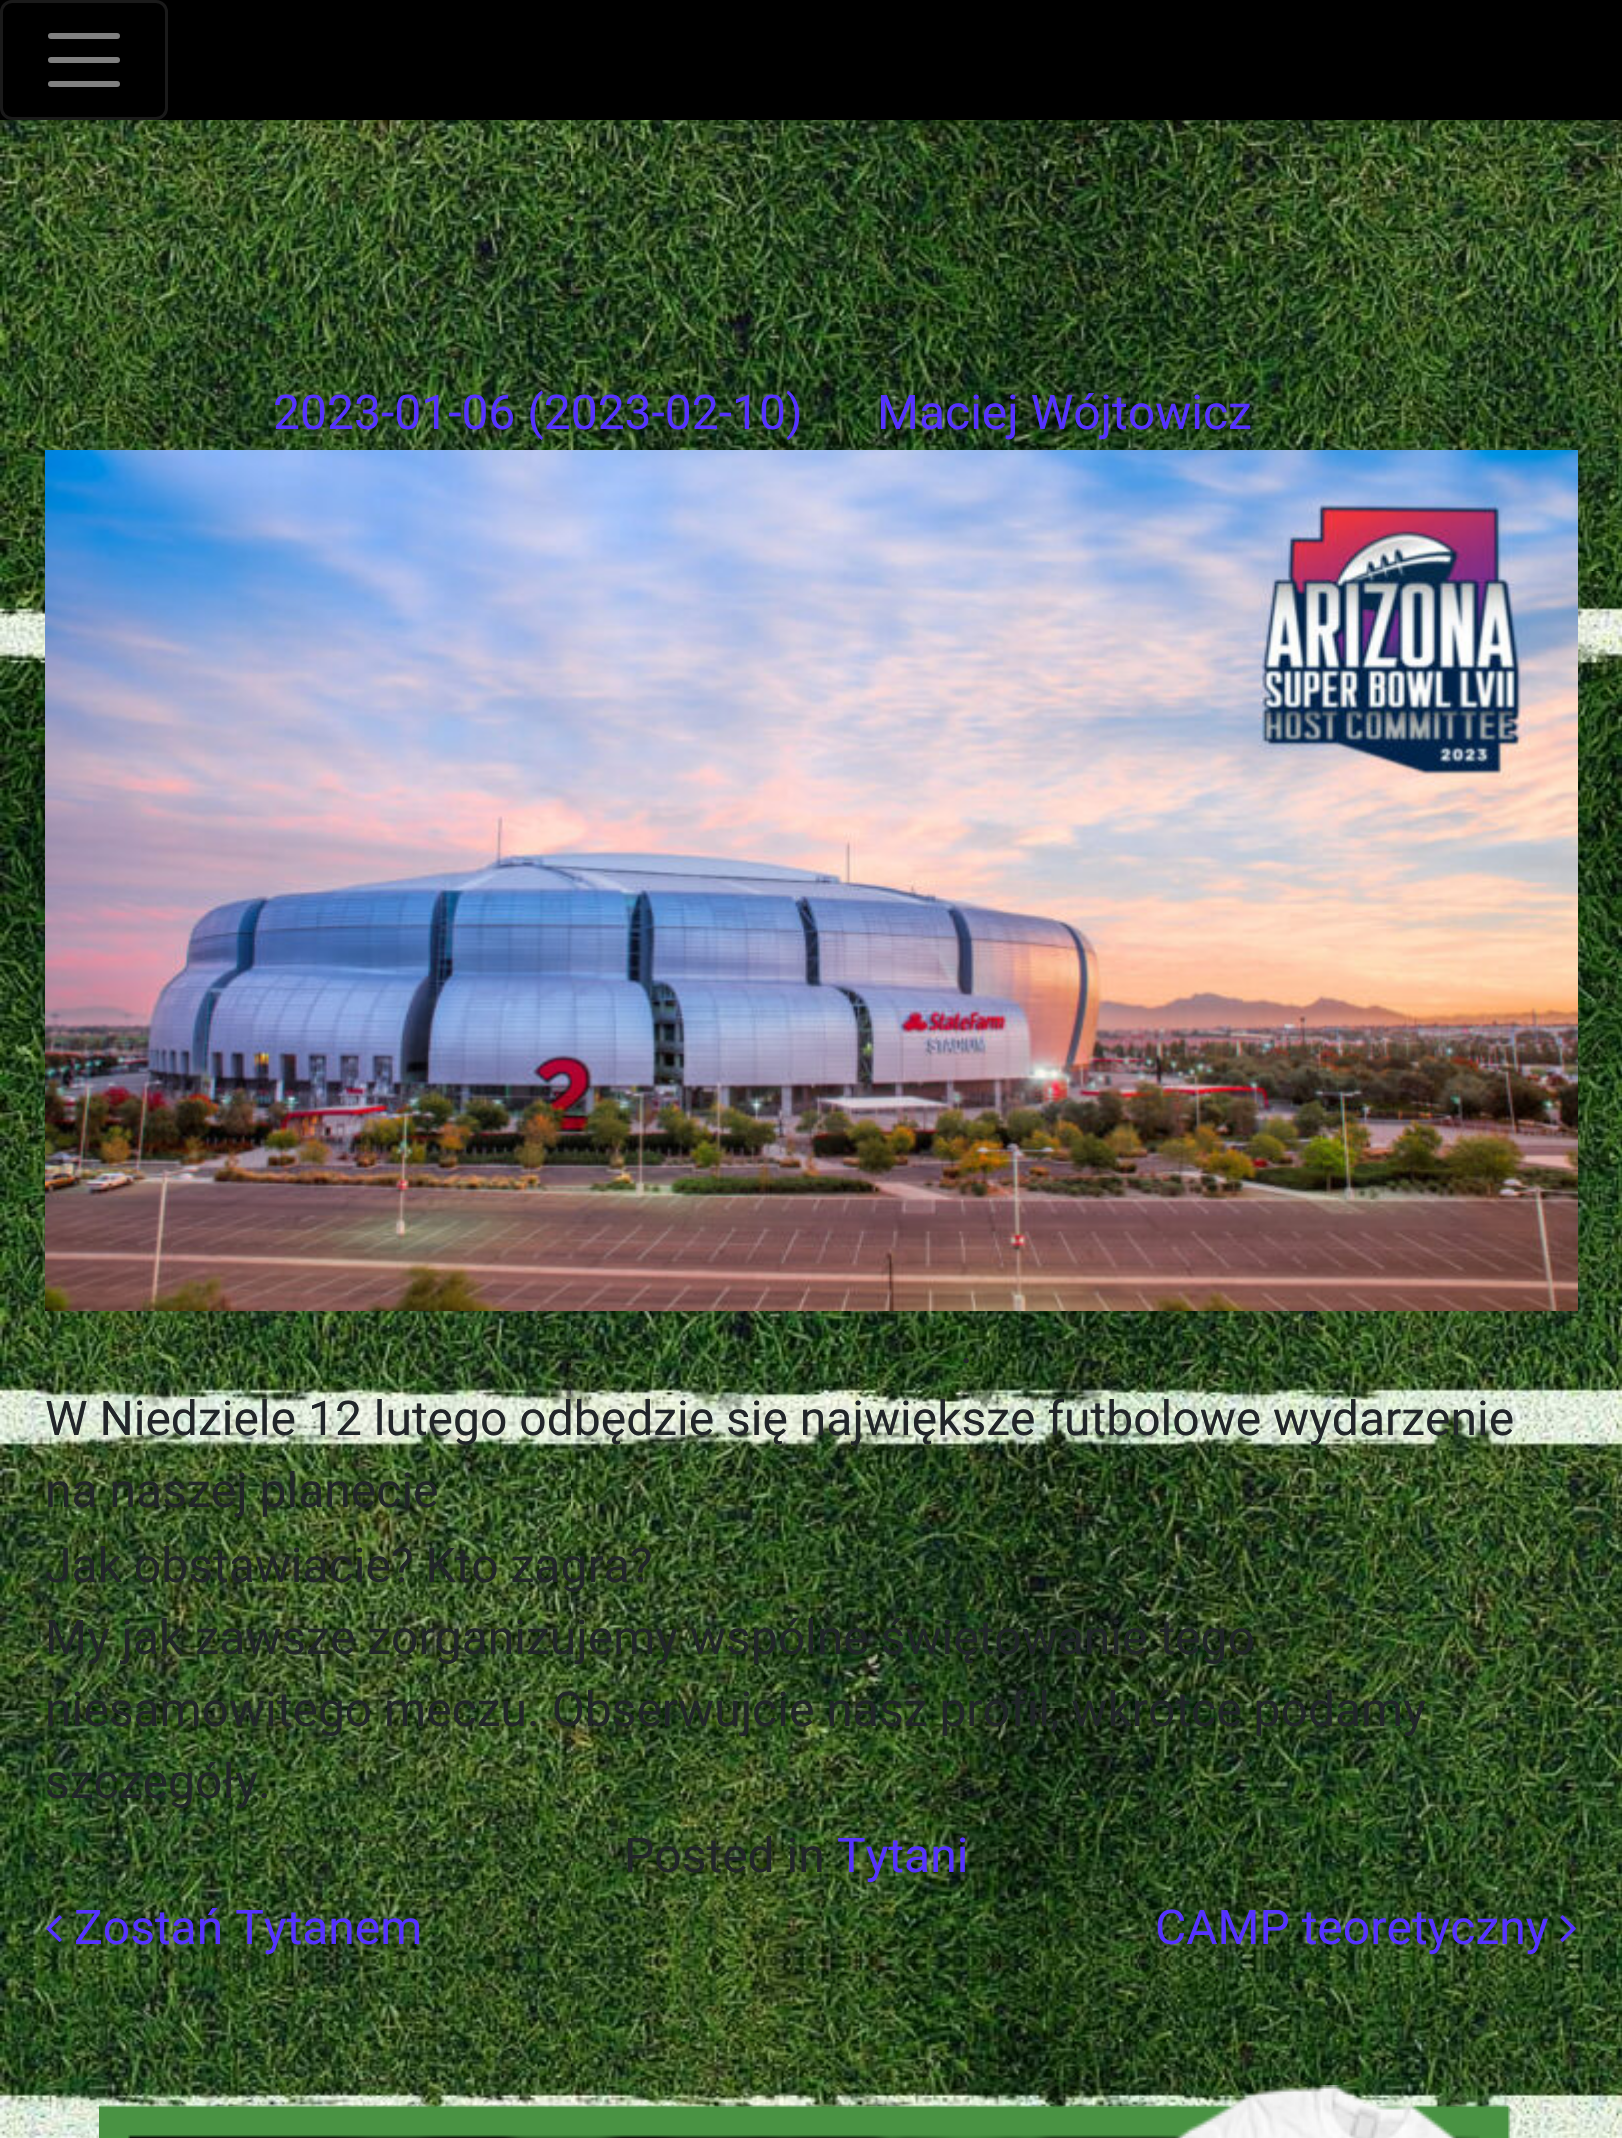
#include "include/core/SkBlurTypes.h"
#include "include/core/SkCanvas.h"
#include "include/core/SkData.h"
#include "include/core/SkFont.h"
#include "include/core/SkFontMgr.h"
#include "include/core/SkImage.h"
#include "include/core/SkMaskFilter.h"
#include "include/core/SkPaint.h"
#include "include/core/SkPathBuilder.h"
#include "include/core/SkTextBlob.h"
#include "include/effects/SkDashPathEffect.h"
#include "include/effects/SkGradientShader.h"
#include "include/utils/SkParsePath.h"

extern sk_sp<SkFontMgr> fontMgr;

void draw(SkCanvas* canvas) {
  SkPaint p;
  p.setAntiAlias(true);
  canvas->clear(SK_ColorWHITE);
  canvas->drawImageRect(SkImages::DeferredFromEncodedData(SkData::MakeFromFileName("images/1.png")), SkRect::MakeLTRB(0, 120, 1622, 2138), SkSamplingOptions());
  p.setColor(SK_ColorBLACK);
  canvas->drawRect(SkRect::MakeLTRB(0, 0, 1622, 120), p);
  p.setStyle(SkPaint::kStroke_Style);
  p.setStrokeWidth(3);
  p.setColor(SkColorSetRGB(26, 26, 26));
  canvas->drawRoundRect(SkRect::MakeLTRB(1.5f, 1.5f, 166.5f, 118.5f), 10.5f, 10.5f, p);
  p.setStrokeWidth(6);
  p.setStrokeCap(SkPaint::kRound_Cap);
  p.setColor(SkColorSetRGB(128, 128, 128));
  canvas->drawPath(SkPathBuilder().moveTo(51, 36).lineTo(117, 36).moveTo(51, 60).lineTo(117, 60).moveTo(51, 84).lineTo(117, 84).detach(), p);
  canvas->drawImageRect(SkImages::DeferredFromEncodedData(SkData::MakeFromFileName("images/2.png")), SkRect::MakeLTRB(45, 450, 1578, 1311), SkSamplingOptions());
  canvas->drawImageRect(SkImages::DeferredFromEncodedData(SkData::MakeFromFileName("images/3.png")), SkRect::MakeLTRB(46, 1915, 62, 1942), SkSamplingOptions());
  canvas->drawImageRect(SkImages::DeferredFromEncodedData(SkData::MakeFromFileName("images/4.png")), SkRect::MakeLTRB(1560, 1915, 1576, 1942), SkSamplingOptions());
  canvas->drawImageRect(SkImages::DeferredFromEncodedData(SkData::MakeFromFileName("images/5.png")), SkRect::MakeLTRB(99, 2085, 1510, 2138), SkSamplingOptions());
  SkFont font1(fontMgr->matchFamilyStyle("Roboto", SkFontStyle::Normal()), 48);
  font1.setSubpixel(true);
  p.setStyle(SkPaint::kFill_Style);
  p.setColor(SkColorSetRGB(85, 51, 255));
  canvas->drawString("2023-01-06 (2023-02-10)", 273, 429, font1, p);
  canvas->drawString("Maciej Wójtowicz", 877, 429, font1, p);
  p.setColor(SkColorSetRGB(33, 37, 41));
  canvas->drawString(".", 960, 1363, font1, p);
  canvas->drawString("W Niedziele 12 lutego odbędzie się największe futbolowe wydarzenie", 45, 1435, font1, p);
  canvas->drawString("na naszej planecie", 45, 1507, font1, p);
  canvas->drawString("Jak obstawiacie? Kto zagra?", 45, 1582, font1, p);
  canvas->drawString("My jak zawsze zorganizujemy wspólne świętowanie tego", 45, 1654, font1, p);
  canvas->drawString("niesamowitego meczu. Obserwujcie nasz profil, wkrótce podamy", 45, 1726, font1, p);
  canvas->drawString("szczegóły.", 45, 1798, font1, p);
  canvas->drawString("Posted in", 624, 1872, font1, p);
  p.setColor(SkColorSetRGB(85, 51, 255));
  canvas->drawString("Tytani", 837, 1872, font1, p);
  canvas->drawString("Zostań Tytanem", 74, 1944, font1, p);
  canvas->drawString("CAMP teoretyczny", 1155, 1944, font1, p);
}
